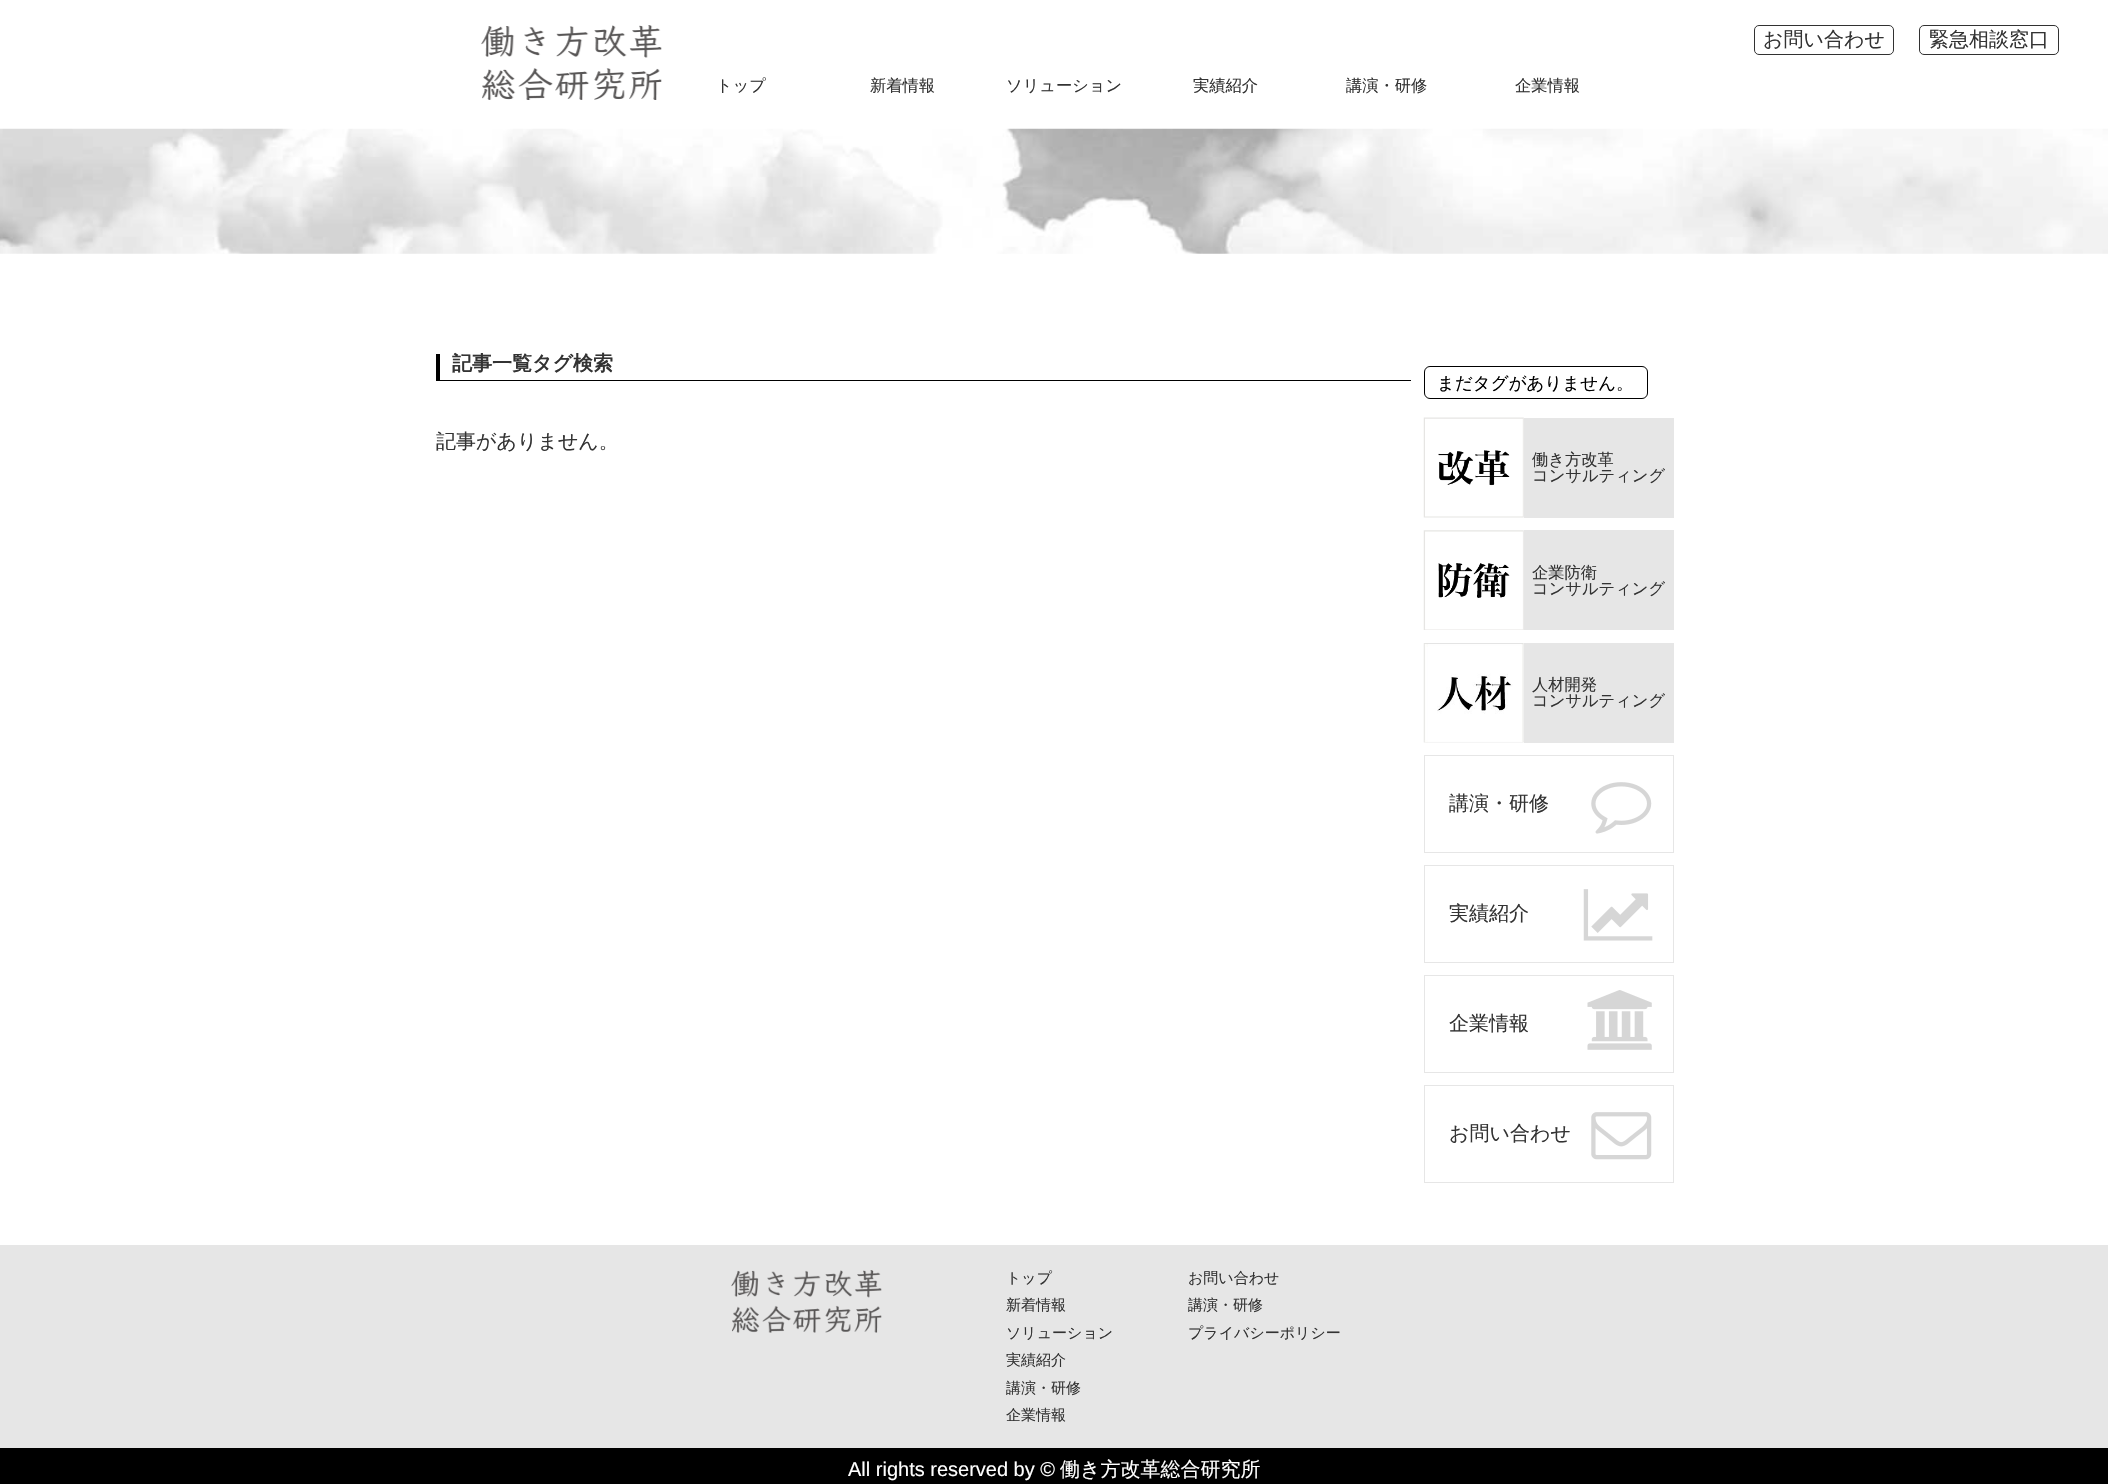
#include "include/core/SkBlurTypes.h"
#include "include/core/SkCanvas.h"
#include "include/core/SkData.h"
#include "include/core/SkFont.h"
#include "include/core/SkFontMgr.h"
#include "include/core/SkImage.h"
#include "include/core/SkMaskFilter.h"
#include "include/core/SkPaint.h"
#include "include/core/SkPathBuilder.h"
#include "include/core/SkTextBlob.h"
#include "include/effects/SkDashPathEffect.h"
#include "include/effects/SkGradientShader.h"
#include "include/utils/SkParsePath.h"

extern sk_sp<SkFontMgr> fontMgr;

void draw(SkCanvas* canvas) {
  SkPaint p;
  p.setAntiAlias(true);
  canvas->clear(SK_ColorWHITE);
  p.setStyle(SkPaint::kStroke_Style);
  p.setStrokeWidth(1);
  p.setColor(SkColorSetRGB(50, 50, 50));
  canvas->drawRoundRect(SkRect::MakeLTRB(1754.5f, 25.5f, 1893.5f, 54.5f), 4.5f, 4.5f, p);
  canvas->drawRoundRect(SkRect::MakeLTRB(1919.5f, 25.5f, 2058.5f, 54.5f), 4.5f, 4.5f, p);
  canvas->drawImageRect(SkImages::DeferredFromEncodedData(SkData::MakeFromFileName("images/1.png")), SkRect::MakeLTRB(481, 25, 662, 100), SkSamplingOptions());
  canvas->drawImageRect(SkImages::DeferredFromEncodedData(SkData::MakeFromFileName("images/2.png")), SkRect::MakeLTRB(0, 128, 2108, 254), SkSamplingOptions());
  p.setStyle(SkPaint::kFill_Style);
  p.setColor(SK_ColorBLACK);
  canvas->drawRect(SkRect::MakeLTRB(436, 380, 1411, 381), p);
  canvas->drawRect(SkRect::MakeLTRB(436, 354, 440, 381), p);
  p.setStyle(SkPaint::kStroke_Style);
  canvas->drawRoundRect(SkRect::MakeLTRB(1424.5f, 366.5f, 1647.5f, 398.5f), 5.5f, 5.5f, p);
  p.setStyle(SkPaint::kFill_Style);
  p.setColor(SkColorSetRGB(230, 230, 230));
  canvas->drawRect(SkRect::MakeLTRB(1524, 418, 1674, 518), p);
  canvas->drawImageRect(SkImages::DeferredFromEncodedData(SkData::MakeFromFileName("images/3.png")), SkRect::MakeLTRB(1423, 417, 1524, 518), SkSamplingOptions());
  canvas->drawRect(SkRect::MakeLTRB(1524, 530, 1674, 630), p);
  canvas->drawImageRect(SkImages::DeferredFromEncodedData(SkData::MakeFromFileName("images/4.png")), SkRect::MakeLTRB(1423, 530, 1524, 630), SkSamplingOptions());
  canvas->drawRect(SkRect::MakeLTRB(1524, 643, 1674, 743), p);
  canvas->drawImageRect(SkImages::DeferredFromEncodedData(SkData::MakeFromFileName("images/5.png")), SkRect::MakeLTRB(1423, 643, 1524, 743), SkSamplingOptions());
  p.setStyle(SkPaint::kStroke_Style);
  canvas->drawRect(SkRect::MakeLTRB(1424.5f, 755.5f, 1673.5f, 852.5f), p);
  canvas->drawImageRect(SkImages::DeferredFromEncodedData(SkData::MakeFromFileName("images/6.png")), SkRect::MakeLTRB(1591, 782, 1652, 834), SkSamplingOptions());
  canvas->drawRect(SkRect::MakeLTRB(1424.5f, 865.5f, 1673.5f, 962.5f), p);
  canvas->drawImageRect(SkImages::DeferredFromEncodedData(SkData::MakeFromFileName("images/7.png")), SkRect::MakeLTRB(1583, 889, 1653, 941), SkSamplingOptions());
  canvas->drawRect(SkRect::MakeLTRB(1424.5f, 975.5f, 1673.5f, 1072.5f), p);
  canvas->drawImageRect(SkImages::DeferredFromEncodedData(SkData::MakeFromFileName("images/8.png")), SkRect::MakeLTRB(1587, 990, 1652, 1050), SkSamplingOptions());
  canvas->drawRect(SkRect::MakeLTRB(1424.5f, 1085.5f, 1673.5f, 1182.5f), p);
  canvas->drawImageRect(SkImages::DeferredFromEncodedData(SkData::MakeFromFileName("images/9.png")), SkRect::MakeLTRB(1591, 1112, 1652, 1160), SkSamplingOptions());
  p.setStyle(SkPaint::kFill_Style);
  canvas->drawRect(SkRect::MakeLTRB(0, 1245, 2108, 1448), p);
  canvas->drawImageRect(SkImages::DeferredFromEncodedData(SkData::MakeFromFileName("images/10.png")), SkRect::MakeLTRB(731, 1270, 882, 1333), SkSamplingOptions());
  p.setColor(SK_ColorBLACK);
  canvas->drawRect(SkRect::MakeLTRB(0, 1448, 2108, 1484), p);
  SkFont font1(fontMgr->matchFamilyStyle("WenQuanYi Zen Hei", SkFontStyle(500, SkFontStyle::kNormal_Width, SkFontStyle::kUpright_Slant)), 20);
  font1.setSubpixel(true);
  p.setColor(SkColorSetRGB(51, 51, 51));
  canvas->drawString("お問い合わせ", 1763, 46, font1, p);
  canvas->drawString("緊急相談窓口", 1929, 46, font1, p);
  SkFont font2(fontMgr->matchFamilyStyle("WenQuanYi Zen Hei", SkFontStyle(500, SkFontStyle::kNormal_Width, SkFontStyle::kUpright_Slant)), 16.25f);
  font2.setSubpixel(true);
  canvas->drawString("トップ", 716, 91, font2, p);
  canvas->drawString("新着情報", 870, 91, font2, p);
  canvas->drawString("ソリューション", 1006, 91, font2, p);
  canvas->drawString("実績紹介", 1193, 91, font2, p);
  canvas->drawString("講演・研修", 1346, 91, font2, p);
  canvas->drawString("企業情報", 1515, 91, font2, p);
  SkFont font3(fontMgr->matchFamilyStyle("WenQuanYi Zen Hei", SkFontStyle::Bold()), 20);
  font3.setSubpixel(true);
  canvas->drawString("記事一覧タグ検索", 452, 370, font3, p);
  canvas->drawString("記事がありません。", 436, 448, font1, p);
  SkFont font4(fontMgr->matchFamilyStyle("WenQuanYi Zen Hei", SkFontStyle(500, SkFontStyle::kNormal_Width, SkFontStyle::kUpright_Slant)), 17.5f);
  font4.setSubpixel(true);
  p.setColor(SK_ColorBLACK);
  canvas->drawString("まだタグがありません。", 1437, 389, font4, p);
  p.setColor(SkColorSetRGB(51, 51, 51));
  canvas->drawString("働き方改革", 1532, 465, font2, p);
  canvas->drawString("コンサルティング", 1532, 481, font2, p);
  canvas->drawString("企業防衛", 1532, 578, font2, p);
  canvas->drawString("コンサルティング", 1532, 594, font2, p);
  canvas->drawString("人材開発", 1532, 690, font2, p);
  canvas->drawString("コンサルティング", 1532, 706, font2, p);
  canvas->drawString("講演・研修", 1449, 810, font1, p);
  canvas->drawString("実績紹介", 1449, 920, font1, p);
  canvas->drawString("企業情報", 1449, 1030, font1, p);
  canvas->drawString("お問い合わせ", 1449, 1140, font1, p);
  SkFont font5(fontMgr->matchFamilyStyle("WenQuanYi Zen Hei", SkFontStyle(500, SkFontStyle::kNormal_Width, SkFontStyle::kUpright_Slant)), 15);
  font5.setSubpixel(true);
  canvas->drawString("トップ", 1006, 1283, font5, p);
  canvas->drawString("新着情報", 1006, 1310, font5, p);
  canvas->drawString("ソリューション", 1006, 1338, font5, p);
  canvas->drawString("実績紹介", 1006, 1365, font5, p);
  canvas->drawString("講演・研修", 1006, 1393, font5, p);
  canvas->drawString("企業情報", 1006, 1420, font5, p);
  canvas->drawString("お問い合わせ", 1188, 1283, font5, p);
  canvas->drawString("講演・研修", 1188, 1310, font5, p);
  canvas->drawString("プライバシーポリシー", 1188, 1338, font5, p);
  SkFont font6(fontMgr->matchFamilyStyle("Liberation Sans", SkFontStyle::Normal()), 20);
  font6.setSubpixel(true);
  p.setColor(SK_ColorWHITE);
  canvas->drawString("All rights reserved by ©", 848, 1476, font6, p);
  canvas->drawString("働き方改革総合研究所", 1060, 1476, font1, p);
}
